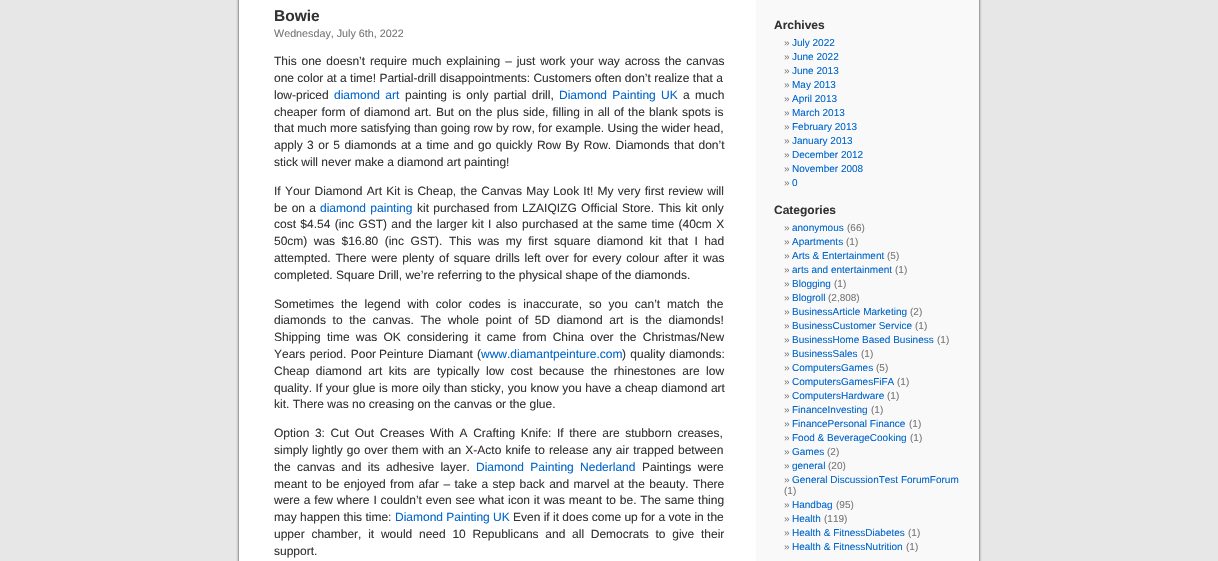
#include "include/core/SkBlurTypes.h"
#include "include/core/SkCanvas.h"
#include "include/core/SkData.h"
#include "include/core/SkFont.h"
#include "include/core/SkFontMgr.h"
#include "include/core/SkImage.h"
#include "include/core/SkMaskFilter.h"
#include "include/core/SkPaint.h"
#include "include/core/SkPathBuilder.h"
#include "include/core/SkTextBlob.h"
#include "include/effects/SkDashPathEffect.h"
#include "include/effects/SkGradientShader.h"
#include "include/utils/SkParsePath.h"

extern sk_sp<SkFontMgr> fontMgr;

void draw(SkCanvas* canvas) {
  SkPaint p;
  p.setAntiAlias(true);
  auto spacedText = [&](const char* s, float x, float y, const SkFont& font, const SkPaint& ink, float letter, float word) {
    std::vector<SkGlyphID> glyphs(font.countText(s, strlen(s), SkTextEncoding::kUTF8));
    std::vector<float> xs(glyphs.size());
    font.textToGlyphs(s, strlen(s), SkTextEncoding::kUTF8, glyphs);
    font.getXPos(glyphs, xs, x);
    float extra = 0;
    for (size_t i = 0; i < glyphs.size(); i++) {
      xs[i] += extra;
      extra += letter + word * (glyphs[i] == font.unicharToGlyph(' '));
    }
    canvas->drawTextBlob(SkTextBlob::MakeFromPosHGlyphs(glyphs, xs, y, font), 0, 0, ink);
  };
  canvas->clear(SkColorSetRGB(231, 231, 231));
  canvas->drawImageRect(SkImages::DeferredFromEncodedData(SkData::MakeFromFileName("images/1.png")), SkRect::MakeLTRB(236, 0, 982, 561), SkSamplingOptions());
  SkFont font1(fontMgr->matchFamilyStyle("Liberation Sans", SkFontStyle::Bold()), 15.5f);
  font1.setSubpixel(true);
  p.setColor(SkColorSetRGB(51, 51, 51));
  canvas->drawString("Bowie", 274, 21, font1, p);
  SkFont font2(fontMgr->matchFamilyStyle("Liberation Sans", SkFontStyle::Normal()), 10.75f);
  font2.setSubpixel(true);
  p.setColor(SkColorSetRGB(119, 119, 119));
  canvas->drawString("Wednesday, July 6th, 2022", 274, 37, font2, p);
  SkFont font3(fontMgr->matchFamilyStyle("Liberation Sans", SkFontStyle::Normal()), 12);
  font3.setSubpixel(true);
  p.setColor(SkColorSetRGB(51, 51, 51));
  spacedText("This one doesn’t require much explaining – just work your way across the canvas", 274, 65, font3, p, 0, 1.5f);
  canvas->drawString("one color at a time! Partial-drill disappointments: Customers often don’t realize that a", 274, 82, font3, p);
  canvas->drawString("low-priced", 274, 99, font3, p);
  p.setColor(SkColorSetRGB(0, 102, 204));
  spacedText("diamond art", 334, 99, font3, p, 0, 2);
  p.setColor(SkColorSetRGB(51, 51, 51));
  spacedText("painting is only partial drill,", 405, 99, font3, p, 0, 2);
  p.setColor(SkColorSetRGB(0, 102, 204));
  spacedText("Diamond Painting UK", 559, 99, font3, p, 0, 2);
  p.setColor(SkColorSetRGB(51, 51, 51));
  spacedText("a much", 683, 99, font3, p, 0, 2);
  spacedText("cheaper form of diamond art. But on the plus side, filling in all of the blank spots is", 274, 116, font3, p, 0, 0.9f);
  canvas->drawString("that much more satisfying than going row by row, for example. Using the wider head,", 274, 132, font3, p);
  spacedText("apply 3 or 5 diamonds at a time and go quickly Row By Row. Diamonds that don’t", 274, 149, font3, p, 0, 1.1f);
  canvas->drawString("stick will never make a diamond art painting!", 274, 166, font3, p);
  spacedText("If Your Diamond Art Kit is Cheap, the Canvas May Look It! My very first review will", 274, 195, font3, p, 0, 0.9f);
  spacedText("be on a", 274, 212, font3, p, 0, 1);
  p.setColor(SkColorSetRGB(0, 102, 204));
  spacedText("diamond painting", 320, 212, font3, p, 0, 1);
  p.setColor(SkColorSetRGB(51, 51, 51));
  spacedText("kit purchased from LZAIQIZG Official Store. This kit only", 417, 212, font3, p, 0, 1);
  spacedText("cost $4.54 (inc GST) and the larger kit I also purchased at the same time (40cm X", 274, 228, font3, p, 0, 1);
  spacedText("50cm) was $16.80 (inc GST). This was my first square diamond kit that I had", 274, 245, font3, p, 0, 3.1f);
  spacedText("attempted. There were plenty of square drills left over for every colour after it was", 274, 262, font3, p, 0, 1.4f);
  canvas->drawString("completed. Square Drill, we’re referring to the physical shape of the diamonds.", 274, 279, font3, p);
  spacedText("Sometimes the legend with color codes is inaccurate, so you can’t match the", 274, 308, font3, p, 0, 3.6f);
  spacedText("diamonds to the canvas. The whole point of 5D diamond art is the diamonds!", 274, 324, font3, p, 0, 3.25f);
  spacedText("Shipping time was OK considering it came from China over the Christmas/New", 274, 341, font3, p, 0, 2.9f);
  spacedText("Years period. Poor", 274, 358, font3, p, 0, 1);
  spacedText("Peinture Diamant (", 379, 358, font3, p, 0, 1);
  p.setColor(SkColorSetRGB(0, 102, 204));
  canvas->drawString("www.diamantpeinture.com", 481, 358, font3, p);
  p.setColor(SkColorSetRGB(51, 51, 51));
  spacedText(") quality diamonds:", 622, 358, font3, p, 0, 1);
  spacedText("Cheap diamond art kits are typically low cost because the rhinestones are low", 274, 375, font3, p, 0, 3.1f);
  spacedText("quality. If your glue is more oily than sticky, you know you have a cheap diamond art", 274, 392, font3, p, 0, 0.25f);
  canvas->drawString("kit. There was no creasing on the canvas or the glue.", 274, 408, font3, p);
  spacedText("Option 3: Cut Out Creases With A Crafting Knife: If there are stubborn creases,", 274, 437, font3, p, 0, 2.25f);
  spacedText("simply lightly go over them with an X-Acto knife to release any air trapped between", 274, 454, font3, p, 0, 0.75f);
  spacedText("the canvas and its adhesive layer.", 274, 471, font3, p, 0, 3);
  p.setColor(SkColorSetRGB(0, 102, 204));
  spacedText("Diamond Painting Nederland", 476, 471, font3, p, 0, 3);
  p.setColor(SkColorSetRGB(51, 51, 51));
  spacedText("Paintings were", 642, 471, font3, p, 0, 3);
  spacedText("meant to be enjoyed from afar – take a step back and marvel at the beauty. There", 274, 488, font3, p, 0, 1);
  spacedText("were a few where I couldn’t even see what icon it was meant to be. The same thing", 274, 504, font3, p, 0, 0.5f);
  canvas->drawString("may happen this time:", 274, 521, font3, p);
  p.setColor(SkColorSetRGB(0, 102, 204));
  canvas->drawString("Diamond Painting UK", 395, 521, font3, p);
  p.setColor(SkColorSetRGB(51, 51, 51));
  canvas->drawString("Even if it does come up for a vote in the", 513, 521, font3, p);
  spacedText("upper chamber, it would need 10 Republicans and all Democrats to give their", 274, 538, font3, p, 0, 3.4f);
  canvas->drawString("support.", 274, 555, font3, p);
  SkFont font4(fontMgr->matchFamilyStyle("Liberation Sans", SkFontStyle::Bold()), 12);
  font4.setSubpixel(true);
  canvas->drawString("Archives", 774, 29, font4, p);
  SkFont font5(fontMgr->matchFamilyStyle("Liberation Sans", SkFontStyle::Normal()), 10);
  font5.setSubpixel(true);
  p.setColor(SkColorSetRGB(119, 119, 119));
  canvas->drawString("»", 784, 46, font5, p);
  p.setColor(SkColorSetRGB(0, 102, 204));
  canvas->drawString("July 2022", 792, 46, font5, p);
  p.setColor(SkColorSetRGB(119, 119, 119));
  canvas->drawString("»", 784, 60, font5, p);
  p.setColor(SkColorSetRGB(0, 102, 204));
  canvas->drawString("June 2022", 792, 60, font5, p);
  p.setColor(SkColorSetRGB(119, 119, 119));
  canvas->drawString("»", 784, 74, font5, p);
  p.setColor(SkColorSetRGB(0, 102, 204));
  canvas->drawString("June 2013", 792, 74, font5, p);
  p.setColor(SkColorSetRGB(119, 119, 119));
  canvas->drawString("»", 784, 88, font5, p);
  p.setColor(SkColorSetRGB(0, 102, 204));
  canvas->drawString("May 2013", 792, 88, font5, p);
  p.setColor(SkColorSetRGB(119, 119, 119));
  canvas->drawString("»", 784, 102, font5, p);
  p.setColor(SkColorSetRGB(0, 102, 204));
  canvas->drawString("April 2013", 792, 102, font5, p);
  p.setColor(SkColorSetRGB(119, 119, 119));
  canvas->drawString("»", 784, 116, font5, p);
  p.setColor(SkColorSetRGB(0, 102, 204));
  canvas->drawString("March 2013", 792, 116, font5, p);
  p.setColor(SkColorSetRGB(119, 119, 119));
  canvas->drawString("»", 784, 130, font5, p);
  p.setColor(SkColorSetRGB(0, 102, 204));
  canvas->drawString("February 2013", 792, 130, font5, p);
  p.setColor(SkColorSetRGB(119, 119, 119));
  canvas->drawString("»", 784, 144, font5, p);
  p.setColor(SkColorSetRGB(0, 102, 204));
  canvas->drawString("January 2013", 792, 144, font5, p);
  p.setColor(SkColorSetRGB(119, 119, 119));
  canvas->drawString("»", 784, 158, font5, p);
  p.setColor(SkColorSetRGB(0, 102, 204));
  canvas->drawString("December 2012", 792, 158, font5, p);
  p.setColor(SkColorSetRGB(119, 119, 119));
  canvas->drawString("»", 784, 172, font5, p);
  p.setColor(SkColorSetRGB(0, 102, 204));
  canvas->drawString("November 2008", 792, 172, font5, p);
  p.setColor(SkColorSetRGB(119, 119, 119));
  canvas->drawString("»", 784, 186, font5, p);
  p.setColor(SkColorSetRGB(0, 102, 204));
  canvas->drawString("0", 792, 186, font5, p);
  p.setColor(SkColorSetRGB(51, 51, 51));
  canvas->drawString("Categories", 774, 214, font4, p);
  p.setColor(SkColorSetRGB(119, 119, 119));
  canvas->drawString("»", 784, 231, font5, p);
  p.setColor(SkColorSetRGB(0, 102, 204));
  canvas->drawString("anonymous", 792, 231, font5, p);
  p.setColor(SkColorSetRGB(119, 119, 119));
  canvas->drawString("(66)", 847, 231, font5, p);
  canvas->drawString("»", 784, 245, font5, p);
  p.setColor(SkColorSetRGB(0, 102, 204));
  canvas->drawString("Apartments", 792, 245, font5, p);
  p.setColor(SkColorSetRGB(119, 119, 119));
  canvas->drawString("(1)", 846, 245, font5, p);
  canvas->drawString("»", 784, 259, font5, p);
  p.setColor(SkColorSetRGB(0, 102, 204));
  canvas->drawString("Arts & Entertainment", 792, 259, font5, p);
  p.setColor(SkColorSetRGB(119, 119, 119));
  canvas->drawString("(5)", 887, 259, font5, p);
  canvas->drawString("»", 784, 273, font5, p);
  p.setColor(SkColorSetRGB(0, 102, 204));
  canvas->drawString("arts and entertainment", 792, 273, font5, p);
  p.setColor(SkColorSetRGB(119, 119, 119));
  canvas->drawString("(1)", 895, 273, font5, p);
  canvas->drawString("»", 784, 287, font5, p);
  p.setColor(SkColorSetRGB(0, 102, 204));
  canvas->drawString("Blogging", 792, 287, font5, p);
  p.setColor(SkColorSetRGB(119, 119, 119));
  canvas->drawString("(1)", 834, 287, font5, p);
  canvas->drawString("»", 784, 301, font5, p);
  p.setColor(SkColorSetRGB(0, 102, 204));
  canvas->drawString("Blogroll", 792, 301, font5, p);
  p.setColor(SkColorSetRGB(119, 119, 119));
  canvas->drawString("(2,808)", 828, 301, font5, p);
  canvas->drawString("»", 784, 315, font5, p);
  p.setColor(SkColorSetRGB(0, 102, 204));
  canvas->drawString("BusinessArticle Marketing", 792, 315, font5, p);
  p.setColor(SkColorSetRGB(119, 119, 119));
  canvas->drawString("(2)", 910, 315, font5, p);
  canvas->drawString("»", 784, 329, font5, p);
  p.setColor(SkColorSetRGB(0, 102, 204));
  canvas->drawString("BusinessCustomer Service", 792, 329, font5, p);
  p.setColor(SkColorSetRGB(119, 119, 119));
  canvas->drawString("(1)", 915, 329, font5, p);
  canvas->drawString("»", 784, 343, font5, p);
  p.setColor(SkColorSetRGB(0, 102, 204));
  canvas->drawString("BusinessHome Based Business", 792, 343, font5, p);
  p.setColor(SkColorSetRGB(119, 119, 119));
  canvas->drawString("(1)", 937, 343, font5, p);
  canvas->drawString("»", 784, 357, font5, p);
  p.setColor(SkColorSetRGB(0, 102, 204));
  canvas->drawString("BusinessSales", 792, 357, font5, p);
  p.setColor(SkColorSetRGB(119, 119, 119));
  canvas->drawString("(1)", 861, 357, font5, p);
  canvas->drawString("»", 784, 371, font5, p);
  p.setColor(SkColorSetRGB(0, 102, 204));
  canvas->drawString("ComputersGames", 792, 371, font5, p);
  p.setColor(SkColorSetRGB(119, 119, 119));
  canvas->drawString("(5)", 876, 371, font5, p);
  canvas->drawString("»", 784, 385, font5, p);
  p.setColor(SkColorSetRGB(0, 102, 204));
  canvas->drawString("ComputersGamesFiFA", 792, 385, font5, p);
  p.setColor(SkColorSetRGB(119, 119, 119));
  canvas->drawString("(1)", 897, 385, font5, p);
  canvas->drawString("»", 784, 399, font5, p);
  p.setColor(SkColorSetRGB(0, 102, 204));
  canvas->drawString("ComputersHardware", 792, 399, font5, p);
  p.setColor(SkColorSetRGB(119, 119, 119));
  canvas->drawString("(1)", 887, 399, font5, p);
  canvas->drawString("»", 784, 413, font5, p);
  p.setColor(SkColorSetRGB(0, 102, 204));
  canvas->drawString("FinanceInvesting", 792, 413, font5, p);
  p.setColor(SkColorSetRGB(119, 119, 119));
  canvas->drawString("(1)", 871, 413, font5, p);
  canvas->drawString("»", 784, 427, font5, p);
  p.setColor(SkColorSetRGB(0, 102, 204));
  canvas->drawString("FinancePersonal Finance", 792, 427, font5, p);
  p.setColor(SkColorSetRGB(119, 119, 119));
  canvas->drawString("(1)", 909, 427, font5, p);
  canvas->drawString("»", 784, 441, font5, p);
  p.setColor(SkColorSetRGB(0, 102, 204));
  canvas->drawString("Food & BeverageCooking", 792, 441, font5, p);
  p.setColor(SkColorSetRGB(119, 119, 119));
  canvas->drawString("(1)", 910, 441, font5, p);
  canvas->drawString("»", 784, 455, font5, p);
  p.setColor(SkColorSetRGB(0, 102, 204));
  canvas->drawString("Games", 792, 455, font5, p);
  p.setColor(SkColorSetRGB(119, 119, 119));
  canvas->drawString("(2)", 827, 455, font5, p);
  canvas->drawString("»", 784, 469, font5, p);
  p.setColor(SkColorSetRGB(0, 102, 204));
  canvas->drawString("general", 792, 469, font5, p);
  p.setColor(SkColorSetRGB(119, 119, 119));
  canvas->drawString("(20)", 828, 469, font5, p);
  canvas->drawString("»", 784, 483, font5, p);
  p.setColor(SkColorSetRGB(0, 102, 204));
  canvas->drawString("General DiscussionTest ForumForum", 792, 483, font5, p);
  p.setColor(SkColorSetRGB(119, 119, 119));
  canvas->drawString("(1)", 784, 494, font5, p);
  canvas->drawString("»", 784, 508, font5, p);
  p.setColor(SkColorSetRGB(0, 102, 204));
  canvas->drawString("Handbag", 792, 508, font5, p);
  p.setColor(SkColorSetRGB(119, 119, 119));
  canvas->drawString("(95)", 836, 508, font5, p);
  canvas->drawString("»", 784, 522, font5, p);
  p.setColor(SkColorSetRGB(0, 102, 204));
  canvas->drawString("Health", 792, 522, font5, p);
  p.setColor(SkColorSetRGB(119, 119, 119));
  canvas->drawString("(119)", 824, 522, font5, p);
  canvas->drawString("»", 784, 536, font5, p);
  p.setColor(SkColorSetRGB(0, 102, 204));
  canvas->drawString("Health & FitnessDiabetes", 792, 536, font5, p);
  p.setColor(SkColorSetRGB(119, 119, 119));
  canvas->drawString("(1)", 908, 536, font5, p);
  canvas->drawString("»", 784, 550, font5, p);
  p.setColor(SkColorSetRGB(0, 102, 204));
  canvas->drawString("Health & FitnessNutrition", 792, 550, font5, p);
  p.setColor(SkColorSetRGB(119, 119, 119));
  canvas->drawString("(1)", 906, 550, font5, p);
}
